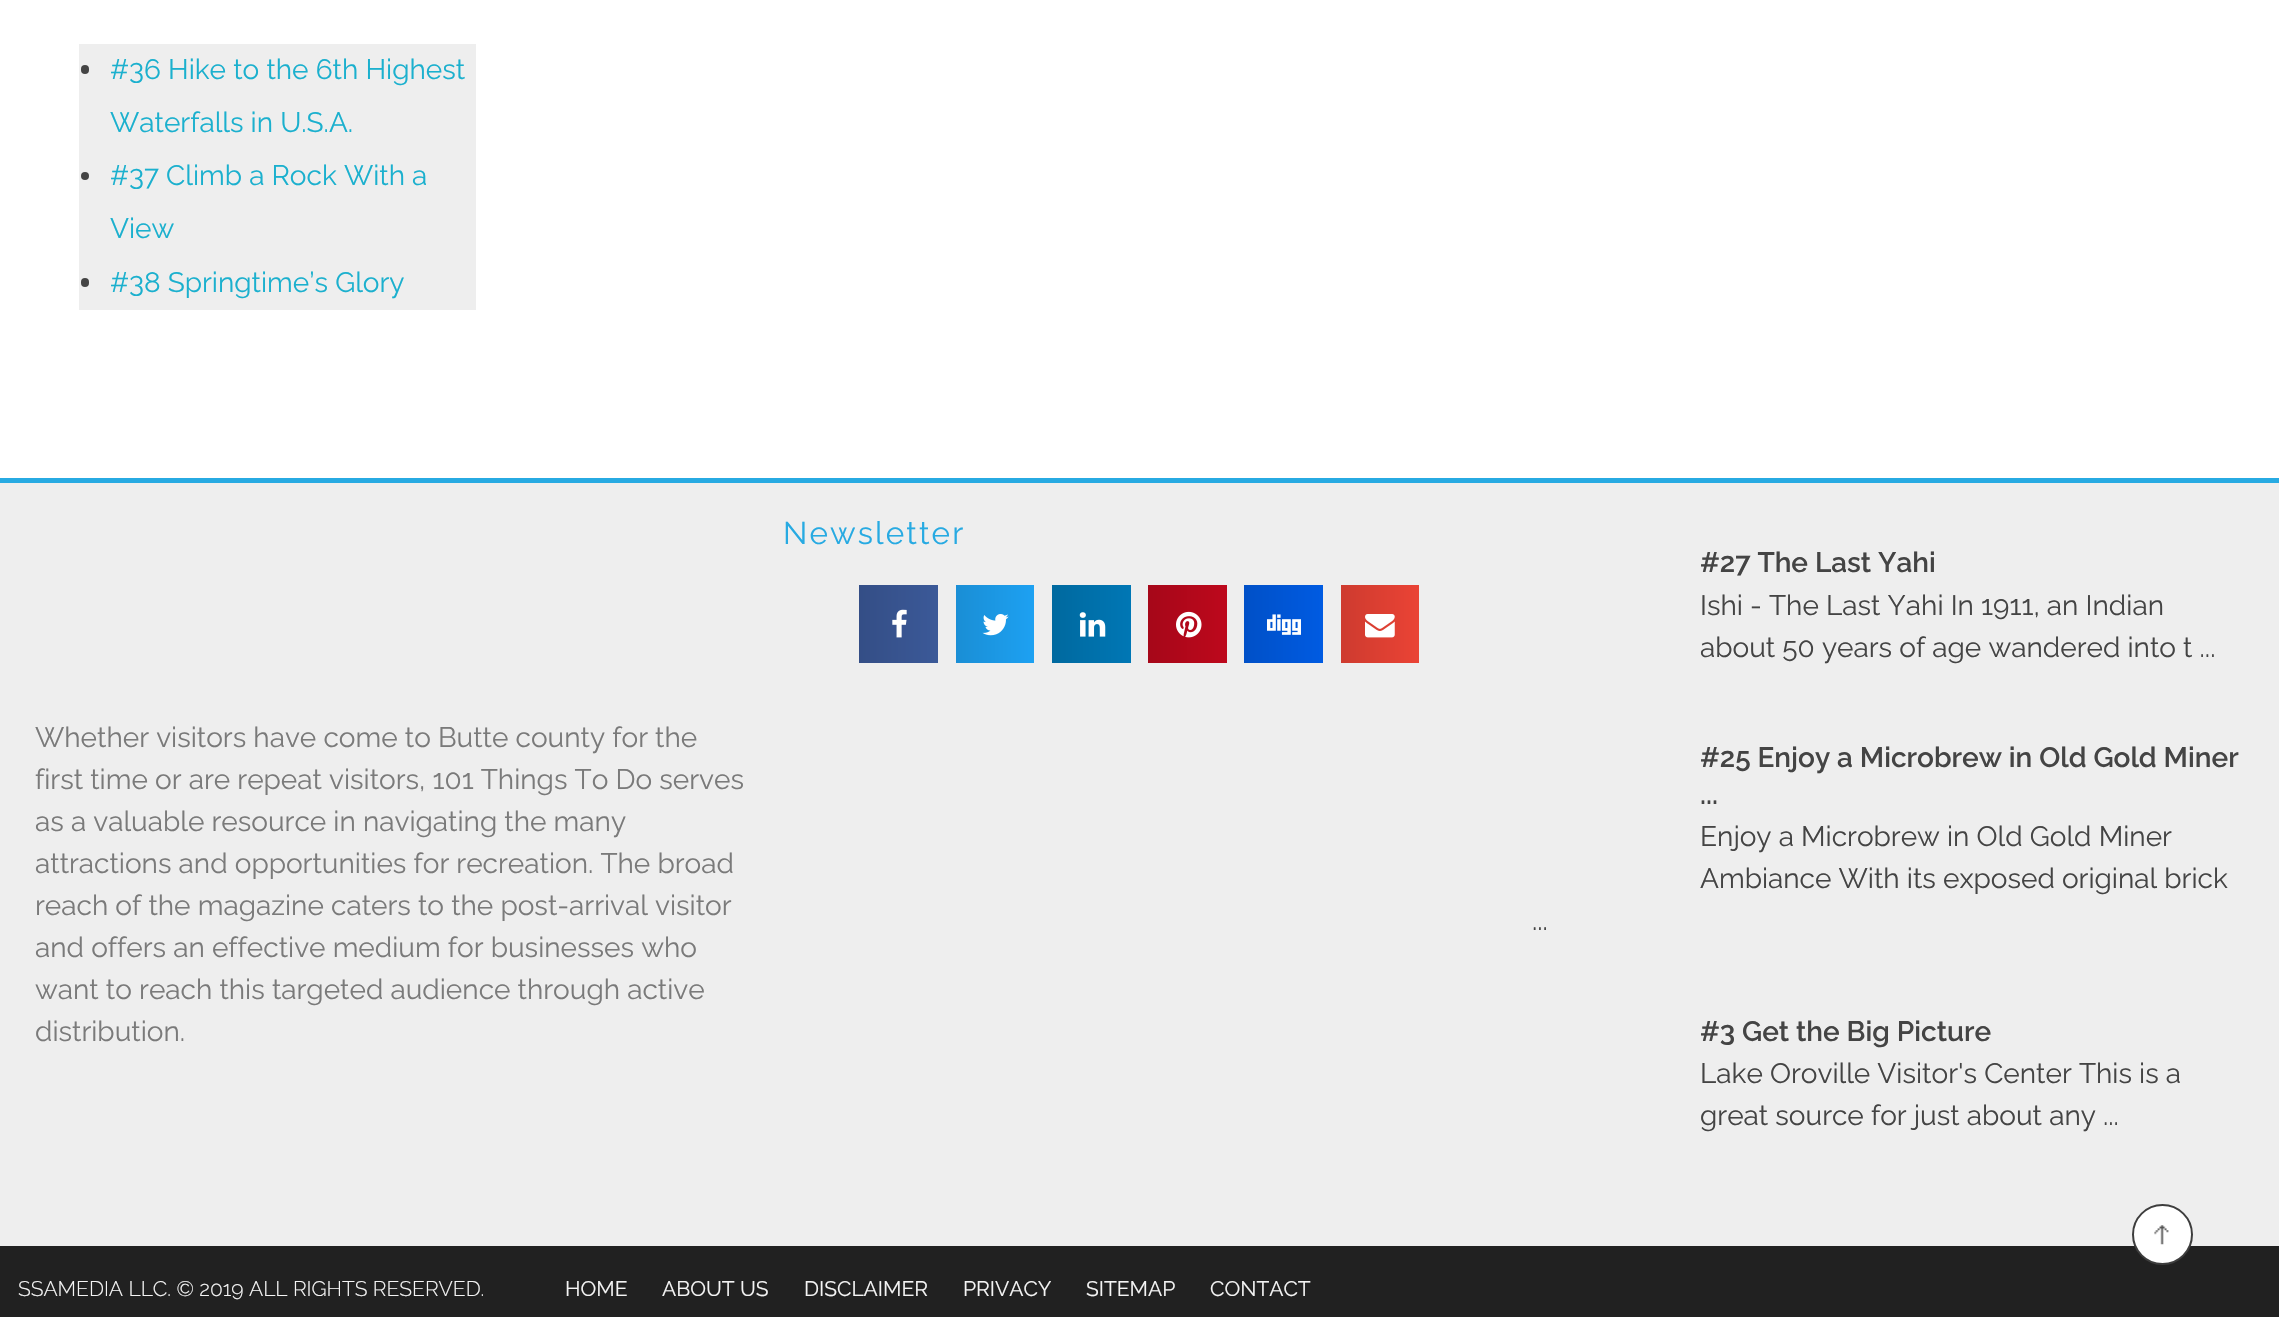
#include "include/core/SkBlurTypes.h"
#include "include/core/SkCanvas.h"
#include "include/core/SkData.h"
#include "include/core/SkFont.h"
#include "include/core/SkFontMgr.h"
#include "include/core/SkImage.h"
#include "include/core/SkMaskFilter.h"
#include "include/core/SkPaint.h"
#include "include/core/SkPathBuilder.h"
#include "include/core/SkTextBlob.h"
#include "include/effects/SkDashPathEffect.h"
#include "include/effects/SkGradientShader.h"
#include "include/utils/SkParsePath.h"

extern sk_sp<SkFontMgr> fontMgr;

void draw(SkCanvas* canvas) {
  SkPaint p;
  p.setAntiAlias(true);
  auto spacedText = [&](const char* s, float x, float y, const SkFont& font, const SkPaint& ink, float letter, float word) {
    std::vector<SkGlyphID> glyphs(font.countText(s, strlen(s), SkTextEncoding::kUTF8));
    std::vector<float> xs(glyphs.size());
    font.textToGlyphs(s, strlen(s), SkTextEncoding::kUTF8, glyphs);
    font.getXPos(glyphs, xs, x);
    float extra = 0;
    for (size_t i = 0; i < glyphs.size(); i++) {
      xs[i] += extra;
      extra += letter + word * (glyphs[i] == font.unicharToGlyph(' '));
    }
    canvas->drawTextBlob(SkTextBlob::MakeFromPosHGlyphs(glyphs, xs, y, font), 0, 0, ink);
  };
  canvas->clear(SK_ColorWHITE);
  p.setColor(SkColorSetRGB(238, 238, 238));
  canvas->drawRect(SkRect::MakeLTRB(79, 44, 476, 310), p);
  p.setColor(SkColorSetRGB(68, 68, 68));
  canvas->drawRoundRect(SkRect::MakeLTRB(81, 65, 89, 74), 4, 4, p);
  canvas->drawCircle(85, 176, 4, p);
  canvas->drawRoundRect(SkRect::MakeLTRB(81, 278, 89, 287), 4, 4, p);
  p.setColor(SkColorSetRGB(238, 238, 238));
  canvas->drawRect(SkRect::MakeLTRB(0, 483, 2279, 1246), p);
  p.setColor(SkColorSetRGB(39, 170, 226));
  canvas->drawRect(SkRect::MakeLTRB(0, 478, 2279, 483), p);
  {
    const SkColor colors[] = {SkColorSetRGB(52, 78, 134), SkColorSetRGB(59, 89, 152)};
    const float stops[] = {0, 1};
    const SkPoint ends[] = {{859, 624}, {938, 624}};
    p.setShader(SkGradientShader::MakeLinear(ends, colors, stops, 2, SkTileMode::kClamp));
    p.setAlpha(255);
  }
  canvas->drawRect(SkRect::MakeLTRB(859, 585, 938, 663), p);
  canvas->drawImageRect(SkImages::DeferredFromEncodedData(SkData::MakeFromFileName("images/1.png")), SkRect::MakeLTRB(892, 609, 907, 638), SkSamplingOptions());
  {
    const SkColor colors[] = {SkColorSetRGB(26, 142, 213), SkColorSetRGB(29, 161, 242)};
    const float stops[] = {0, 1};
    const SkPoint ends[] = {{956, 624}, {1034, 624}};
    p.setShader(SkGradientShader::MakeLinear(ends, colors, stops, 2, SkTileMode::kClamp));
    p.setAlpha(255);
  }
  canvas->drawRect(SkRect::MakeLTRB(956, 585, 1034, 663), p);
  canvas->drawImageRect(SkImages::DeferredFromEncodedData(SkData::MakeFromFileName("images/2.png")), SkRect::MakeLTRB(982, 614, 1009, 636), SkSamplingOptions());
  {
    const SkColor colors[] = {SkColorSetRGB(0, 105, 159), SkColorSetRGB(0, 119, 181)};
    const float stops[] = {0, 1};
    const SkPoint ends[] = {{1052, 624}, {1131, 624}};
    p.setShader(SkGradientShader::MakeLinear(ends, colors, stops, 2, SkTileMode::kClamp));
    p.setAlpha(255);
  }
  canvas->drawRect(SkRect::MakeLTRB(1052, 585, 1131, 663), p);
  canvas->drawImageRect(SkImages::DeferredFromEncodedData(SkData::MakeFromFileName("images/3.png")), SkRect::MakeLTRB(1079, 612, 1106, 637), SkSamplingOptions());
  {
    const SkColor colors[] = {SkColorSetRGB(166, 7, 25), SkColorSetRGB(189, 8, 28)};
    const float stops[] = {0, 1};
    const SkPoint ends[] = {{1148, 624}, {1227, 624}};
    p.setShader(SkGradientShader::MakeLinear(ends, colors, stops, 2, SkTileMode::kClamp));
    p.setAlpha(255);
  }
  canvas->drawRect(SkRect::MakeLTRB(1148, 585, 1227, 663), p);
  canvas->drawImageRect(SkImages::DeferredFromEncodedData(SkData::MakeFromFileName("images/4.png")), SkRect::MakeLTRB(1176, 611, 1202, 638), SkSamplingOptions());
  {
    const SkColor colors[] = {SkColorSetRGB(0, 80, 199), SkColorSetRGB(0, 91, 226)};
    const float stops[] = {0, 1};
    const SkPoint ends[] = {{1244, 624}, {1323, 624}};
    p.setShader(SkGradientShader::MakeLinear(ends, colors, stops, 2, SkTileMode::kClamp));
    p.setAlpha(255);
  }
  canvas->drawRect(SkRect::MakeLTRB(1244, 585, 1323, 663), p);
  canvas->drawImageRect(SkImages::DeferredFromEncodedData(SkData::MakeFromFileName("images/5.png")), SkRect::MakeLTRB(1267, 614, 1301, 635), SkSamplingOptions());
  {
    const SkColor colors[] = {SkColorSetRGB(206, 59, 47), SkColorSetRGB(234, 67, 53)};
    const float stops[] = {0, 1};
    const SkPoint ends[] = {{1341, 624}, {1419, 624}};
    p.setShader(SkGradientShader::MakeLinear(ends, colors, stops, 2, SkTileMode::kClamp));
    p.setAlpha(255);
  }
  canvas->drawRect(SkRect::MakeLTRB(1341, 585, 1419, 663), p);
  canvas->drawImageRect(SkImages::DeferredFromEncodedData(SkData::MakeFromFileName("images/6.png")), SkRect::MakeLTRB(1365, 614, 1395, 638), SkSamplingOptions());
  p.setShader(nullptr);
  p.setColor(SkColorSetRGB(33, 33, 33));
  canvas->drawRect(SkRect::MakeLTRB(0, 1246, 2279, 1317), p);
  p.setColor(SK_ColorWHITE);
  canvas->drawCircle(2162.5f, 1234.5f, 29.5f, p);
  p.setStyle(SkPaint::kStroke_Style);
  p.setStrokeWidth(2);
  p.setColor(SkColorSetRGB(61, 61, 61));
  canvas->drawCircle(2162.5f, 1234.5f, 29.5f, p);
  canvas->drawImageRect(SkImages::DeferredFromEncodedData(SkData::MakeFromFileName("images/7.png")), SkRect::MakeLTRB(2154, 1225, 2169, 1245), SkSamplingOptions());
  SkFont font1(fontMgr->matchFamilyStyle("Raleway", SkFontStyle::Normal()), 28);
  font1.setSubpixel(true);
  p.setStyle(SkPaint::kFill_Style);
  p.setColor(SkColorSetRGB(27, 176, 206));
  canvas->drawString("#36 Hike to the 6th Highest", 110, 79, font1, p);
  canvas->drawString("Waterfalls in U.S.A.", 110, 132, font1, p);
  canvas->drawString("#37 Climb a Rock With a", 110, 185, font1, p);
  canvas->drawString("View", 110, 238, font1, p);
  canvas->drawString("#38 Springtime’s Glory", 110, 292, font1, p);
  SkFont font2(fontMgr->matchFamilyStyle("Raleway", SkFontStyle::Normal()), 31.5f);
  font2.setSubpixel(true);
  p.setColor(SkColorSetRGB(39, 170, 226));
  spacedText("Newsletter", 783, 544, font2, p, 2.1f, 0);
  p.setColor(SkColorSetRGB(122, 122, 122));
  canvas->drawString("Whether visitors have come to Butte county for the", 35, 747, font1, p);
  canvas->drawString("first time or are repeat visitors, 101 Things To Do serves", 35, 789, font1, p);
  canvas->drawString("as a valuable resource in navigating the many", 35, 831, font1, p);
  canvas->drawString("attractions and opportunities for recreation. The broad", 35, 873, font1, p);
  canvas->drawString("reach of the magazine caters to the post-arrival visitor", 35, 915, font1, p);
  canvas->drawString("and offers an effective medium for businesses who", 35, 957, font1, p);
  canvas->drawString("want to reach this targeted audience through active", 35, 999, font1, p);
  canvas->drawString("distribution.", 35, 1041, font1, p);
  SkFont font3(fontMgr->matchFamilyStyle("Raleway", SkFontStyle(600, SkFontStyle::kNormal_Width, SkFontStyle::kUpright_Slant)), 28);
  font3.setSubpixel(true);
  p.setColor(SkColorSetRGB(68, 68, 68));
  canvas->drawString("#27 The Last Yahi", 1700, 572, font3, p);
  canvas->drawString("Ishi - The Last Yahi In 1911, an Indian", 1700, 615, font1, p);
  canvas->drawString("about 50 years of age wandered into t ...", 1700, 657, font1, p);
  canvas->drawString("#25 Enjoy a Microbrew in Old Gold Miner", 1700, 767, font3, p);
  canvas->drawString("...", 1700, 804, font3, p);
  canvas->drawString("Enjoy a Microbrew in Old Gold Miner", 1700, 846, font1, p);
  canvas->drawString("Ambiance With its exposed original brick", 1700, 888, font1, p);
  canvas->drawString("...", 1532, 930, font1, p);
  canvas->drawString("#3 Get the Big Picture", 1700, 1041, font3, p);
  canvas->drawString("Lake Oroville Visitor's Center This is a", 1700, 1083, font1, p);
  canvas->drawString("great source for just about any ...", 1700, 1125, font1, p);
  SkFont font4(fontMgr->matchFamilyStyle("Raleway", SkFontStyle(300, SkFontStyle::kNormal_Width, SkFontStyle::kUpright_Slant)), 21);
  font4.setSubpixel(true);
  p.setColor(SkColorSetRGB(244, 244, 244));
  canvas->drawString("SSAMEDIA LLC. © 2019 ALL RIGHTS RESERVED.", 18, 1296, font4, p);
  SkFont font5(fontMgr->matchFamilyStyle("Raleway", SkFontStyle::Normal()), 21);
  font5.setSubpixel(true);
  canvas->drawString("HOME", 565, 1296, font5, p);
  canvas->drawString("ABOUT US", 662, 1296, font5, p);
  canvas->drawString("DISCLAIMER", 804, 1296, font5, p);
  canvas->drawString("PRIVACY", 963, 1296, font5, p);
  canvas->drawString("SITEMAP", 1086, 1296, font5, p);
  canvas->drawString("CONTACT", 1210, 1296, font5, p);
}
